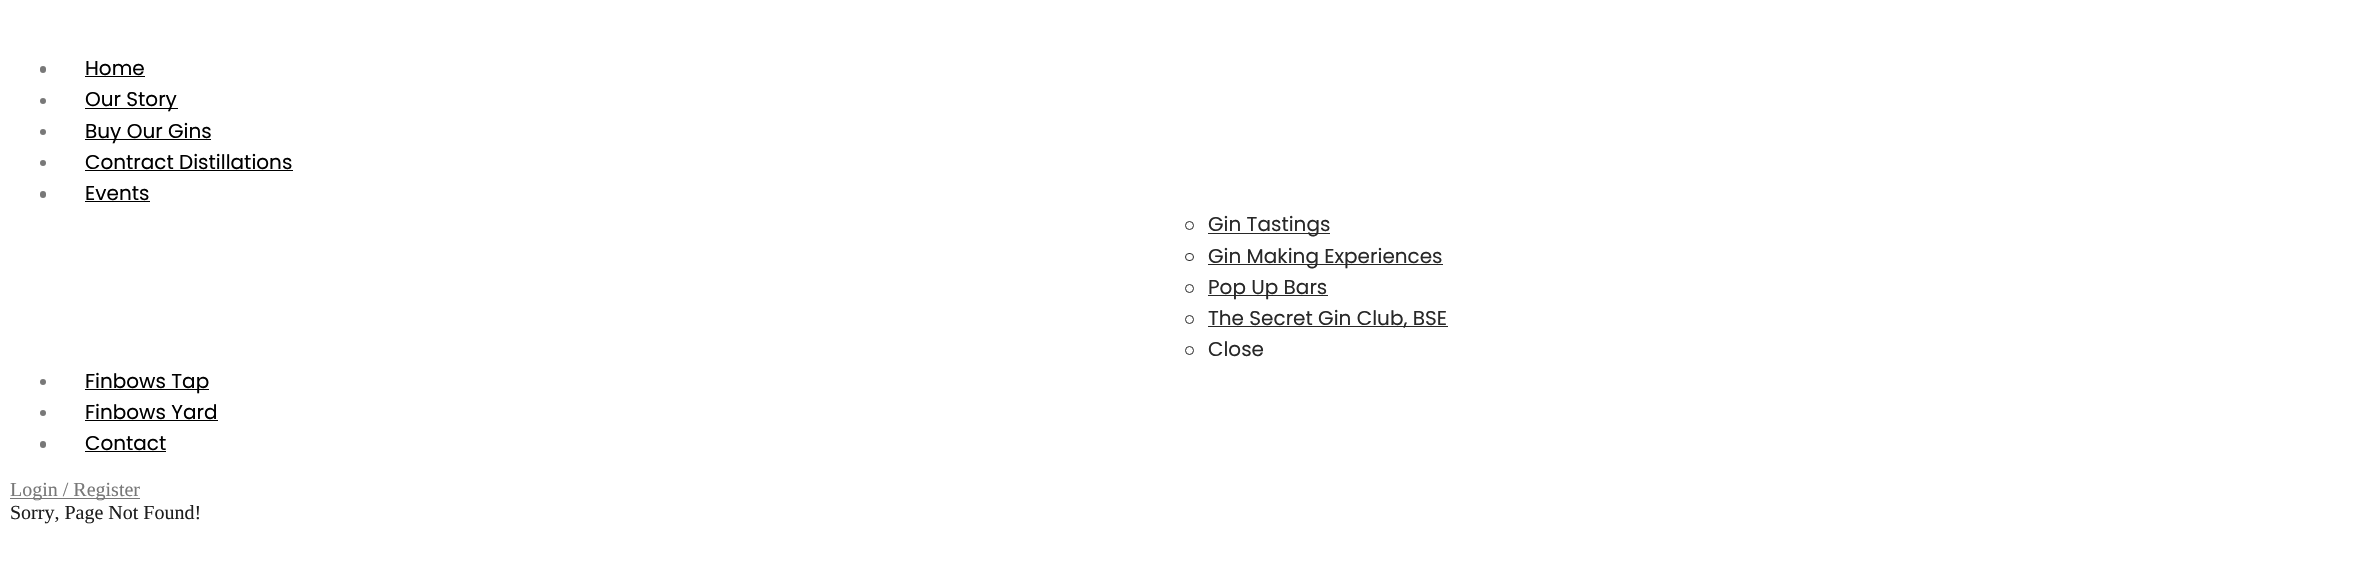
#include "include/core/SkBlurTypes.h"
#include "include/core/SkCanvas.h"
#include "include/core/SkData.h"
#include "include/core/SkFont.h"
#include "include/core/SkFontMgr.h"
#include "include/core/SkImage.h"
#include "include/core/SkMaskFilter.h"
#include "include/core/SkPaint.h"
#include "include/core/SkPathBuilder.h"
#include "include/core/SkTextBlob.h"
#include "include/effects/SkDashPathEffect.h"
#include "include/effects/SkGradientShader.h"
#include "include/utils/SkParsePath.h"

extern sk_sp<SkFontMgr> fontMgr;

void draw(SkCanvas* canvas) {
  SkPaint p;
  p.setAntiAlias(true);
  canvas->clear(SK_ColorWHITE);
  p.setColor(SkColorSetRGB(120, 120, 120));
  canvas->drawRoundRect(SkRect::MakeLTRB(40, 66, 46, 73), 3, 3, p);
  p.setColor(SK_ColorBLACK);
  canvas->drawRect(SkRect::MakeLTRB(85, 76, 145, 77), p);
  p.setColor(SkColorSetRGB(120, 120, 120));
  canvas->drawCircle(43, 101, 3, p);
  p.setColor(SK_ColorBLACK);
  canvas->drawRect(SkRect::MakeLTRB(85, 108, 178, 109), p);
  p.setColor(SkColorSetRGB(120, 120, 120));
  canvas->drawCircle(43, 132, 3, p);
  p.setColor(SK_ColorBLACK);
  canvas->drawRect(SkRect::MakeLTRB(85, 139, 211, 140), p);
  p.setColor(SkColorSetRGB(120, 120, 120));
  canvas->drawCircle(43, 163, 3, p);
  p.setColor(SK_ColorBLACK);
  canvas->drawRect(SkRect::MakeLTRB(85, 170, 293, 171), p);
  p.setColor(SkColorSetRGB(120, 120, 120));
  canvas->drawRoundRect(SkRect::MakeLTRB(40, 191, 46, 198), 3, 3, p);
  p.setColor(SK_ColorBLACK);
  canvas->drawRect(SkRect::MakeLTRB(85, 201, 150, 202), p);
  p.setStyle(SkPaint::kStroke_Style);
  p.setStrokeWidth(1);
  p.setColor(SkColorSetRGB(40, 40, 40));
  canvas->drawCircle(1189.5f, 225.5f, 4, p);
  p.setStyle(SkPaint::kFill_Style);
  canvas->drawRect(SkRect::MakeLTRB(1208, 233, 1330, 234), p);
  p.setStyle(SkPaint::kStroke_Style);
  canvas->drawRoundRect(SkRect::MakeLTRB(1185.5f, 253.5f, 1193.5f, 260.5f), 3.5f, 3.5f, p);
  p.setStyle(SkPaint::kFill_Style);
  canvas->drawRect(SkRect::MakeLTRB(1208, 264, 1443, 265), p);
  p.setStyle(SkPaint::kStroke_Style);
  canvas->drawCircle(1189.5f, 288.5f, 4, p);
  p.setStyle(SkPaint::kFill_Style);
  canvas->drawRect(SkRect::MakeLTRB(1208, 295, 1328, 296), p);
  p.setStyle(SkPaint::kStroke_Style);
  canvas->drawCircle(1189.5f, 319.5f, 4, p);
  p.setStyle(SkPaint::kFill_Style);
  canvas->drawRect(SkRect::MakeLTRB(1208, 326, 1448, 327), p);
  p.setStyle(SkPaint::kStroke_Style);
  canvas->drawCircle(1189.5f, 350.5f, 4, p);
  p.setStyle(SkPaint::kFill_Style);
  p.setColor(SkColorSetRGB(120, 120, 120));
  canvas->drawCircle(43, 382, 3, p);
  p.setColor(SK_ColorBLACK);
  canvas->drawRect(SkRect::MakeLTRB(85, 389, 209, 390), p);
  p.setColor(SkColorSetRGB(120, 120, 120));
  canvas->drawCircle(43, 413, 3, p);
  p.setColor(SK_ColorBLACK);
  canvas->drawRect(SkRect::MakeLTRB(85, 420, 218, 421), p);
  p.setColor(SkColorSetRGB(120, 120, 120));
  canvas->drawRoundRect(SkRect::MakeLTRB(40, 441, 46, 448), 3, 3, p);
  p.setColor(SK_ColorBLACK);
  canvas->drawRect(SkRect::MakeLTRB(85, 451, 166, 452), p);
  p.setColor(SkColorSetRGB(120, 120, 120));
  canvas->drawRect(SkRect::MakeLTRB(10, 498, 140, 499), p);
  SkFont font1(fontMgr->matchFamilyStyle("Poppins", SkFontStyle::Normal()), 20);
  font1.setSubpixel(true);
  p.setColor(SK_ColorBLACK);
  canvas->drawString("Home", 85, 75, font1, p);
  canvas->drawString("Our Story", 85, 106, font1, p);
  canvas->drawString("Buy Our Gins", 85, 138, font1, p);
  canvas->drawString("Contract Distillations", 85, 169, font1, p);
  canvas->drawString("Events", 85, 200, font1, p);
  p.setColor(SkColorSetRGB(40, 40, 40));
  canvas->drawString("Gin Tastings", 1208, 231, font1, p);
  canvas->drawString("Gin Making Experiences", 1208, 263, font1, p);
  canvas->drawString("Pop Up Bars", 1208, 294, font1, p);
  canvas->drawString("The Secret Gin Club, BSE", 1208, 325, font1, p);
  canvas->drawString("Close", 1208, 356, font1, p);
  p.setColor(SK_ColorBLACK);
  canvas->drawString("Finbows Tap", 85, 388, font1, p);
  canvas->drawString("Finbows Yard", 85, 419, font1, p);
  canvas->drawString("Contact", 85, 450, font1, p);
  SkFont font2(fontMgr->matchFamilyStyle("Liberation Serif", SkFontStyle::Normal()), 20);
  font2.setSubpixel(true);
  p.setColor(SkColorSetRGB(120, 120, 120));
  canvas->drawString("Login / Register", 10, 496, font2, p);
  p.setColor(SkColorSetRGB(30, 30, 30));
  canvas->drawString("Sorry, Page Not Found!", 10, 519, font2, p);
}
